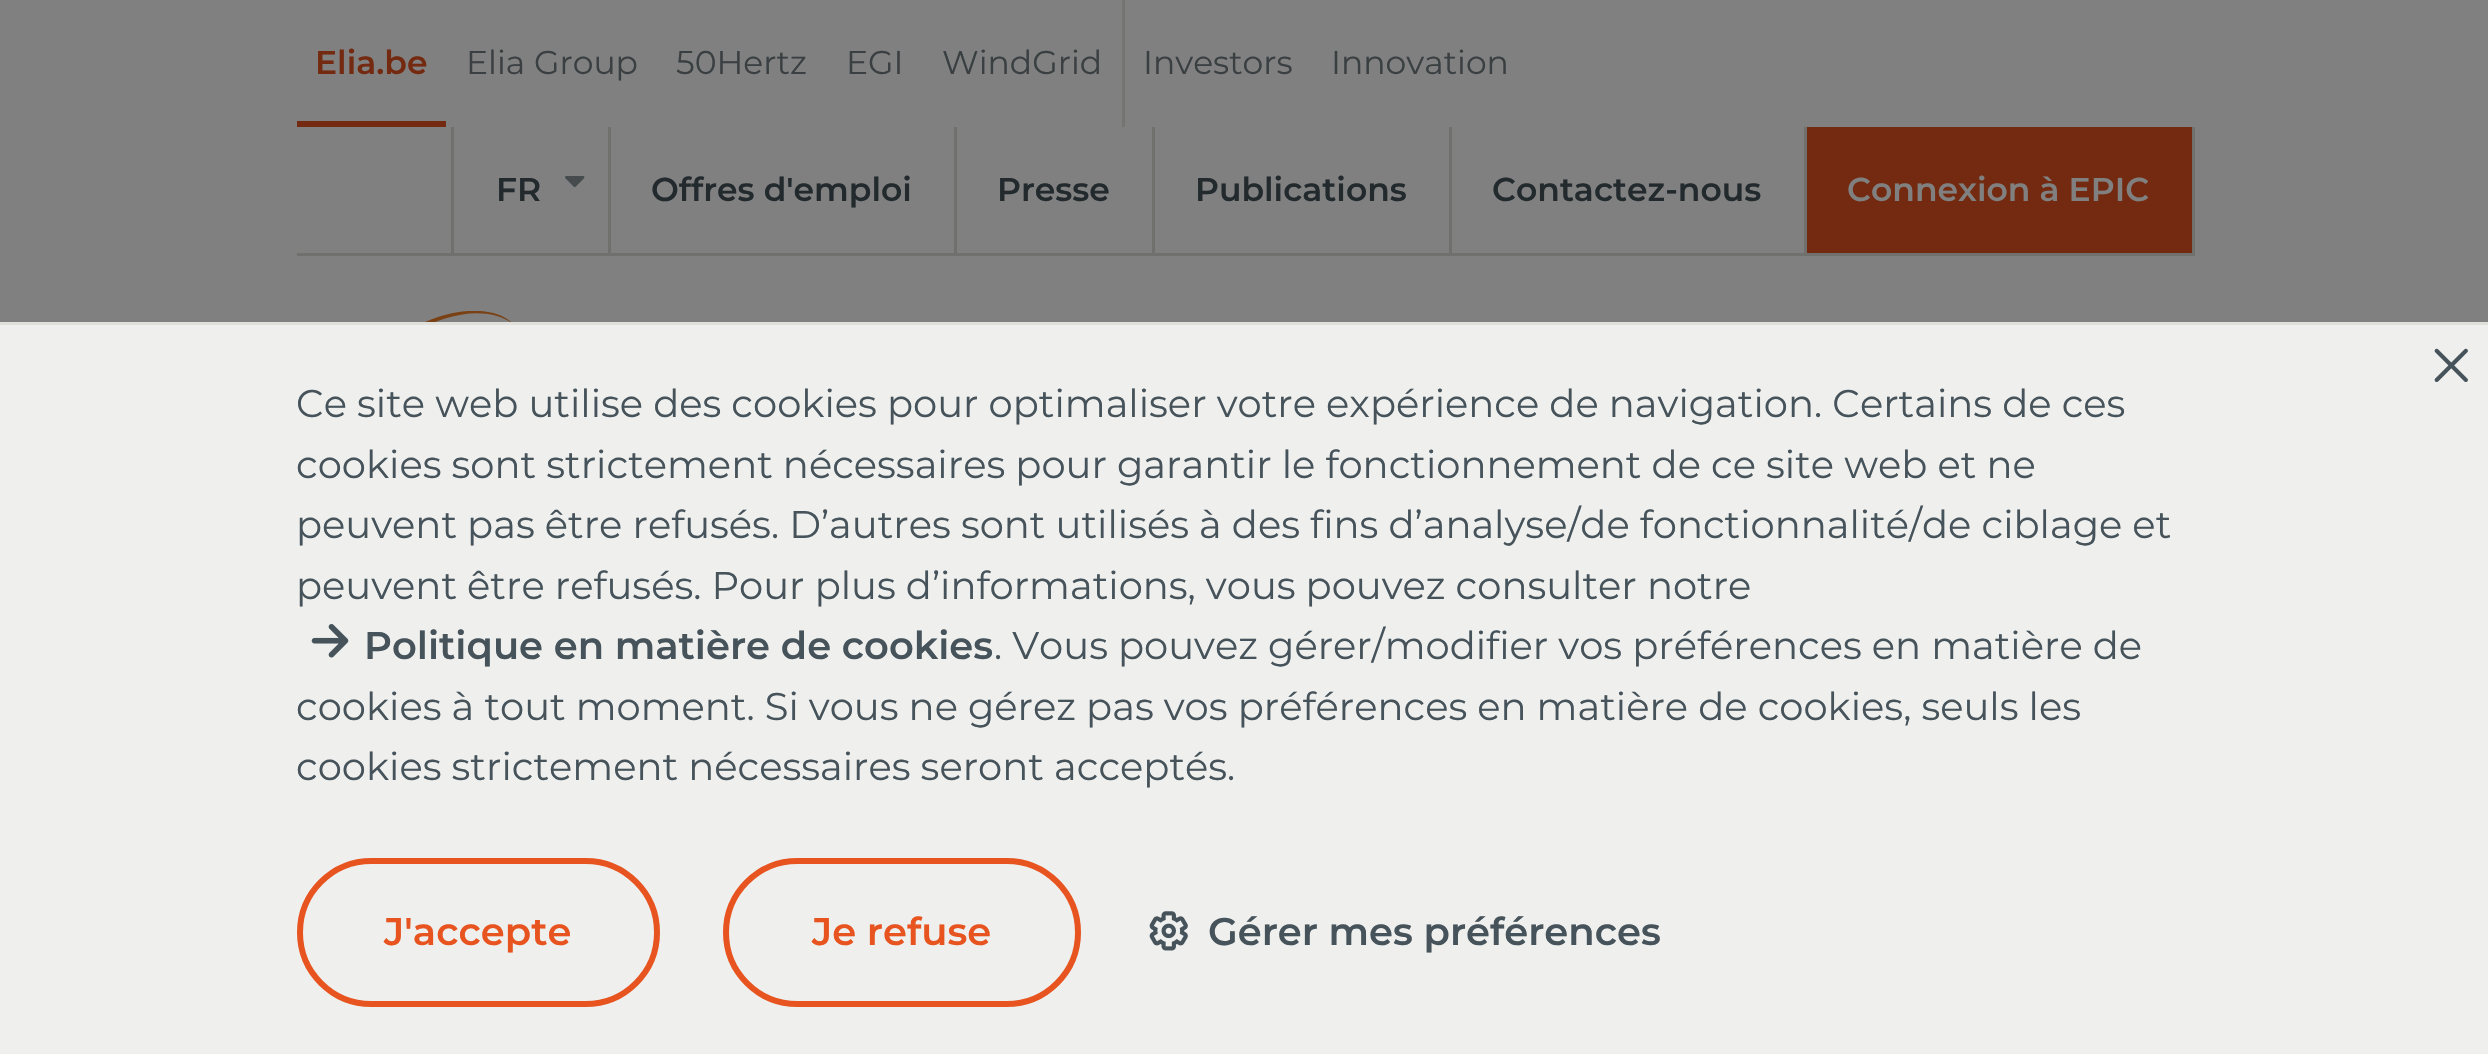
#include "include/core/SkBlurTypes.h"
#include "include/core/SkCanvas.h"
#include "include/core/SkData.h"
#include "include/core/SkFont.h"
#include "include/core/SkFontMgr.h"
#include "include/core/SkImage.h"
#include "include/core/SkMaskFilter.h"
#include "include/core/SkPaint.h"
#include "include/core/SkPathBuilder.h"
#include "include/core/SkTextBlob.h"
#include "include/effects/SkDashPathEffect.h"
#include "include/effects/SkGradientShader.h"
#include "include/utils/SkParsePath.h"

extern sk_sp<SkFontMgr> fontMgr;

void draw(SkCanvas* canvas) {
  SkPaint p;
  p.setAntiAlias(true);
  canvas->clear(SkColorSetRGB(128, 128, 128));
  p.setColor(SkColorSetRGB(112, 113, 111));
  canvas->drawRect(SkRect::MakeLTRB(297, 253, 2195, 256), p);
  p.setColor(SkColorSetRGB(116, 42, 16));
  canvas->drawRect(SkRect::MakeLTRB(297, 121, 446, 127), p);
  p.setColor(SkColorSetRGB(116, 117, 115));
  canvas->drawRect(SkRect::MakeLTRB(1122, 0, 1125, 127), p);
  p.setColor(SkColorSetRGB(112, 113, 111));
  canvas->drawRect(SkRect::MakeLTRB(451, 127, 454, 253), p);
  canvas->drawImageRect(SkImages::DeferredFromEncodedData(SkData::MakeFromFileName("images/1.png")), SkRect::MakeLTRB(565, 176, 585, 188), SkSamplingOptions());
  canvas->drawRect(SkRect::MakeLTRB(608, 127, 611, 253), p);
  canvas->drawRect(SkRect::MakeLTRB(954, 127, 957, 253), p);
  canvas->drawRect(SkRect::MakeLTRB(1152, 127, 1155, 253), p);
  canvas->drawRect(SkRect::MakeLTRB(1449, 127, 1452, 253), p);
  p.setColor(SkColorSetRGB(116, 42, 16));
  canvas->drawRect(SkRect::MakeLTRB(1807, 127, 2192, 253), p);
  p.setColor(SkColorSetRGB(112, 113, 111));
  canvas->drawRect(SkRect::MakeLTRB(2192, 127, 2195, 253), p);
  canvas->drawRect(SkRect::MakeLTRB(1804, 127, 1807, 253), p);
  canvas->drawImageRect(SkImages::DeferredFromEncodedData(SkData::MakeFromFileName("images/2.png")), SkRect::MakeLTRB(425, 311, 511, 322), SkSamplingOptions());
  p.setColor(SkColorSetRGB(239, 240, 238));
  canvas->drawRect(SkRect::MakeLTRB(0, 325, 2488, 1054), p);
  p.setColor(SkColorSetRGB(224, 225, 221));
  canvas->drawRect(SkRect::MakeLTRB(0, 322, 2488, 325), p);
  canvas->drawImageRect(SkImages::DeferredFromEncodedData(SkData::MakeFromFileName("images/3.png")), SkRect::MakeLTRB(2434, 348, 2468, 382), SkSamplingOptions());
  canvas->drawImageRect(SkImages::DeferredFromEncodedData(SkData::MakeFromFileName("images/4.png")), SkRect::MakeLTRB(311, 624, 349, 658), SkSamplingOptions());
  p.setStyle(SkPaint::kStroke_Style);
  p.setStrokeWidth(6);
  p.setColor(SkColorSetRGB(231, 84, 32));
  canvas->drawRoundRect(SkRect::MakeLTRB(300, 861, 657, 1004), 71.5f, 71.5f, p);
  canvas->drawRoundRect(SkRect::MakeLTRB(726, 861, 1078, 1004), 71.5f, 71.5f, p);
  canvas->drawImageRect(SkImages::DeferredFromEncodedData(SkData::MakeFromFileName("images/5.png")), SkRect::MakeLTRB(1149, 911, 1188, 951), SkSamplingOptions());
  SkFont font1(fontMgr->matchFamilyStyle("Montserrat", SkFontStyle(600, SkFontStyle::kNormal_Width, SkFontStyle::kUpright_Slant)), 33);
  font1.setSubpixel(true);
  p.setStyle(SkPaint::kFill_Style);
  p.setColor(SkColorSetRGB(116, 42, 16));
  canvas->drawString("Elia.be", 315, 74, font1, p);
  SkFont font2(fontMgr->matchFamilyStyle("Montserrat", SkFontStyle::Normal()), 33);
  font2.setSubpixel(true);
  p.setColor(SkColorSetRGB(58, 63, 66));
  canvas->drawString("Elia Group", 466, 74, font2, p);
  canvas->drawString("50Hertz", 676, 74, font2, p);
  canvas->drawString("EGI", 846, 74, font2, p);
  canvas->drawString("WindGrid", 942, 74, font2, p);
  canvas->drawString("Investors", 1143, 74, font2, p);
  canvas->drawString("Innovation", 1331, 74, font2, p);
  p.setColor(SkColorSetRGB(35, 42, 46));
  canvas->drawString("FR", 496, 201, font1, p);
  canvas->drawString("Offres d'emploi", 651, 201, font1, p);
  canvas->drawString("Presse", 997, 201, font1, p);
  canvas->drawString("Publications", 1195, 201, font1, p);
  canvas->drawString("Contactez-nous", 1492, 201, font1, p);
  p.setColor(SkColorSetRGB(128, 128, 128));
  canvas->drawString("Connexion à EPIC", 1847, 201, font1, p);
  SkFont font3(fontMgr->matchFamilyStyle("Montserrat", SkFontStyle::Normal()), 38.5f);
  font3.setSubpixel(true);
  p.setColor(SkColorSetRGB(70, 83, 91));
  canvas->drawString("Ce site web utilise des cookies pour optimaliser votre expérience de navigation. Certains de ces", 296, 417, font3, p);
  canvas->drawString("cookies sont strictement nécessaires pour garantir le fonctionnement de ce site web et ne", 296, 478, font3, p);
  canvas->drawString("peuvent pas être refusés. D’autres sont utilisés à des fins d’analyse/de fonctionnalité/de ciblage et", 296, 538, font3, p);
  canvas->drawString("peuvent être refusés. Pour plus d’informations, vous pouvez consulter notre", 296, 599, font3, p);
  SkFont font4(fontMgr->matchFamilyStyle("Montserrat", SkFontStyle(600, SkFontStyle::kNormal_Width, SkFontStyle::kUpright_Slant)), 38.5f);
  font4.setSubpixel(true);
  canvas->drawString("Politique en matière de cookies", 364, 659, font4, p);
  canvas->drawString(". Vous pouvez gérer/modifier vos préférences en matière de", 994, 659, font3, p);
  canvas->drawString("cookies à tout moment. Si vous ne gérez pas vos préférences en matière de cookies, seuls les", 296, 720, font3, p);
  canvas->drawString("cookies strictement nécessaires seront acceptés.", 296, 780, font3, p);
  p.setColor(SkColorSetRGB(231, 84, 32));
  canvas->drawString("J'accepte", 384, 945, font4, p);
  canvas->drawString("Je refuse", 812, 945, font4, p);
  p.setColor(SkColorSetRGB(70, 83, 91));
  canvas->drawString("Gérer mes préférences", 1208, 945, font4, p);
}
